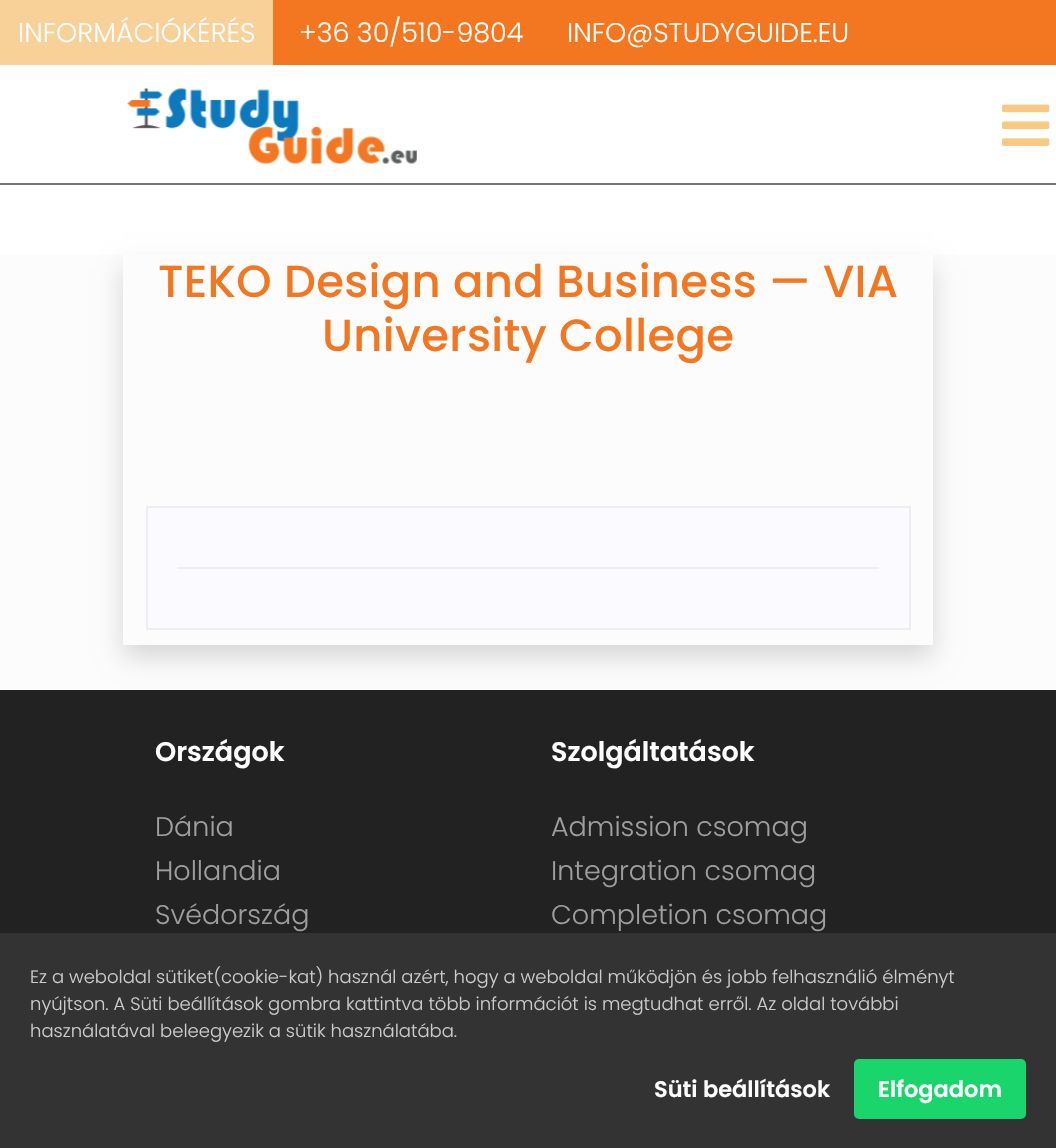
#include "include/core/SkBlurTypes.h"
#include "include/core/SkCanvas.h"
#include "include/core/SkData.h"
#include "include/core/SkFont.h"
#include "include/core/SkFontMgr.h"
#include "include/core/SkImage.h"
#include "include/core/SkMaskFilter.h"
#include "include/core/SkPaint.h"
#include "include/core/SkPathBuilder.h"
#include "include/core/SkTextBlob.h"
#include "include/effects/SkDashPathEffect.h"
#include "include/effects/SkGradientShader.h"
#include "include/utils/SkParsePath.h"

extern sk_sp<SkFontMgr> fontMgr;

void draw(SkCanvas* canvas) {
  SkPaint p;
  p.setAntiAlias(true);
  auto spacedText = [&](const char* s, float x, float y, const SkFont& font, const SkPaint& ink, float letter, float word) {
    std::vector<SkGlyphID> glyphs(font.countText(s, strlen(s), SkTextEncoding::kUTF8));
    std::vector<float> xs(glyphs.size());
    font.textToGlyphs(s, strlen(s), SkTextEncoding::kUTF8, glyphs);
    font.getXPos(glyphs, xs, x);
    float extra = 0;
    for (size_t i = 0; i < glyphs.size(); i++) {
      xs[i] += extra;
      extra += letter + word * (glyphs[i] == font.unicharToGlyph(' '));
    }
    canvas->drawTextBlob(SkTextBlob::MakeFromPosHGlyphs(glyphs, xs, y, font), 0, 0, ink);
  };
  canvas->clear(SK_ColorWHITE);
  p.setColor(SkColorSetRGB(243, 119, 33));
  canvas->drawRect(SkRect::MakeLTRB(273, 0, 1056, 65), p);
  p.setColor(SkColorSetRGB(247, 209, 152));
  canvas->drawRect(SkRect::MakeLTRB(0, 0, 273, 65), p);
  p.setColor(SkColorSetRGB(119, 119, 119));
  canvas->drawRect(SkRect::MakeLTRB(0, 183, 1056, 185), p);
  canvas->drawImageRect(SkImages::DeferredFromEncodedData(SkData::MakeFromFileName("images/1.png")), SkRect::MakeLTRB(127, 88, 417, 164), SkSamplingOptions());
  canvas->drawImageRect(SkImages::DeferredFromEncodedData(SkData::MakeFromFileName("images/2.png")), SkRect::MakeLTRB(1002, 104, 1050, 146), SkSamplingOptions());
  p.setColor(SkColorSetRGB(252, 252, 252));
  canvas->drawRect(SkRect::MakeLTRB(0, 255, 1056, 690), p);
  canvas->save();
  canvas->clipPath(SkPathBuilder(SkPathFillType::kEvenOdd).moveTo(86, 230).lineTo(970, 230).lineTo(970, 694).lineTo(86, 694).close().moveTo(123, 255).lineTo(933, 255).lineTo(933, 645).lineTo(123, 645).close().detach(), true);
  p.setColor(SkColorSetARGB(38, 0, 0, 0));
  p.setMaskFilter(SkMaskFilter::MakeBlur(kNormal_SkBlurStyle, 12));
  canvas->drawRect(SkRect::MakeLTRB(123, 267, 933, 657), p);
  p.setMaskFilter(nullptr);
  canvas->restore();
  p.setColor(SkColorSetRGB(250, 250, 255));
  canvas->drawRect(SkRect::MakeLTRB(147, 507, 910, 629), p);
  p.setStyle(SkPaint::kStroke_Style);
  p.setStrokeWidth(2);
  p.setColor(SkColorSetRGB(238, 238, 238));
  canvas->drawRect(SkRect::MakeLTRB(147, 507, 910, 629), p);
  p.setStyle(SkPaint::kFill_Style);
  canvas->drawRect(SkRect::MakeLTRB(177, 567, 879, 569), p);
  p.setColor(SkColorSetRGB(34, 34, 34));
  canvas->drawRect(SkRect::MakeLTRB(0, 690, 1056, 933), p);
  p.setColor(SkColorSetRGB(51, 51, 51));
  canvas->drawRect(SkRect::MakeLTRB(0, 933, 1056, 1148), p);
  p.setColor(SkColorSetRGB(26, 213, 108));
  canvas->drawRoundRect(SkRect::MakeLTRB(854, 1059, 1026, 1119), 5, 5, p);
  SkFont font1(fontMgr->matchFamilyStyle("Poppins", SkFontStyle(300, SkFontStyle::kNormal_Width, SkFontStyle::kUpright_Slant)), 27);
  font1.setSubpixel(true);
  p.setColor(SK_ColorWHITE);
  canvas->drawString("INFORMÁCIÓKÉRÉS", 18, 42, font1, p);
  canvas->drawString("+36 30/510-9804", 299, 42, font1, p);
  canvas->drawString("INFO@STUDYGUIDE.EU", 567, 42, font1, p);
  SkFont font2(fontMgr->matchFamilyStyle("Poppins", SkFontStyle(500, SkFontStyle::kNormal_Width, SkFontStyle::kUpright_Slant)), 45);
  font2.setSubpixel(true);
  p.setColor(SkColorSetRGB(243, 119, 33));
  spacedText("TEKO Design and Business — VIA", 158, 297, font2, p, 0.3f, 0);
  spacedText("University College", 322, 351, font2, p, 0.3f, 0);
  SkFont font3(fontMgr->matchFamilyStyle("Poppins", SkFontStyle(600, SkFontStyle::kNormal_Width, SkFontStyle::kUpright_Slant)), 27);
  font3.setSubpixel(true);
  p.setColor(SK_ColorWHITE);
  canvas->drawString("Országok", 155, 761, font3, p);
  p.setColor(SkColorSetRGB(158, 158, 158));
  canvas->drawString("Dánia", 155, 836, font1, p);
  canvas->drawString("Hollandia", 155, 880, font1, p);
  canvas->drawString("Svédország", 155, 924, font1, p);
  p.setColor(SK_ColorWHITE);
  canvas->drawString("Szolgáltatások", 551, 761, font3, p);
  p.setColor(SkColorSetRGB(158, 158, 158));
  canvas->drawString("Admission csomag", 551, 836, font1, p);
  canvas->drawString("Integration csomag", 551, 880, font1, p);
  canvas->drawString("Completion csomag", 551, 924, font1, p);
  SkFont font4(fontMgr->matchFamilyStyle("Poppins", SkFontStyle(300, SkFontStyle::kNormal_Width, SkFontStyle::kUpright_Slant)), 18);
  font4.setSubpixel(true);
  p.setColor(SkColorSetRGB(204, 204, 204));
  canvas->drawString("Ez a weboldal sütiket(cookie-kat) használ azért, hogy a weboldal működjön és jobb felhasználió élményt", 30, 983, font4, p);
  canvas->drawString("nyújtson. A Süti beállítások gombra kattintva több információt is megtudhat erről. Az oldal további", 30, 1010, font4, p);
  canvas->drawString("használatával beleegyezik a sütik használatába.", 30, 1037, font4, p);
  SkFont font5(fontMgr->matchFamilyStyle("Poppins", SkFontStyle(600, SkFontStyle::kNormal_Width, SkFontStyle::kUpright_Slant)), 22.5f);
  font5.setSubpixel(true);
  p.setColor(SK_ColorWHITE);
  canvas->drawString("Süti beállítások", 654, 1097, font5, p);
  canvas->drawString("Elfogadom", 878, 1097, font5, p);
}
